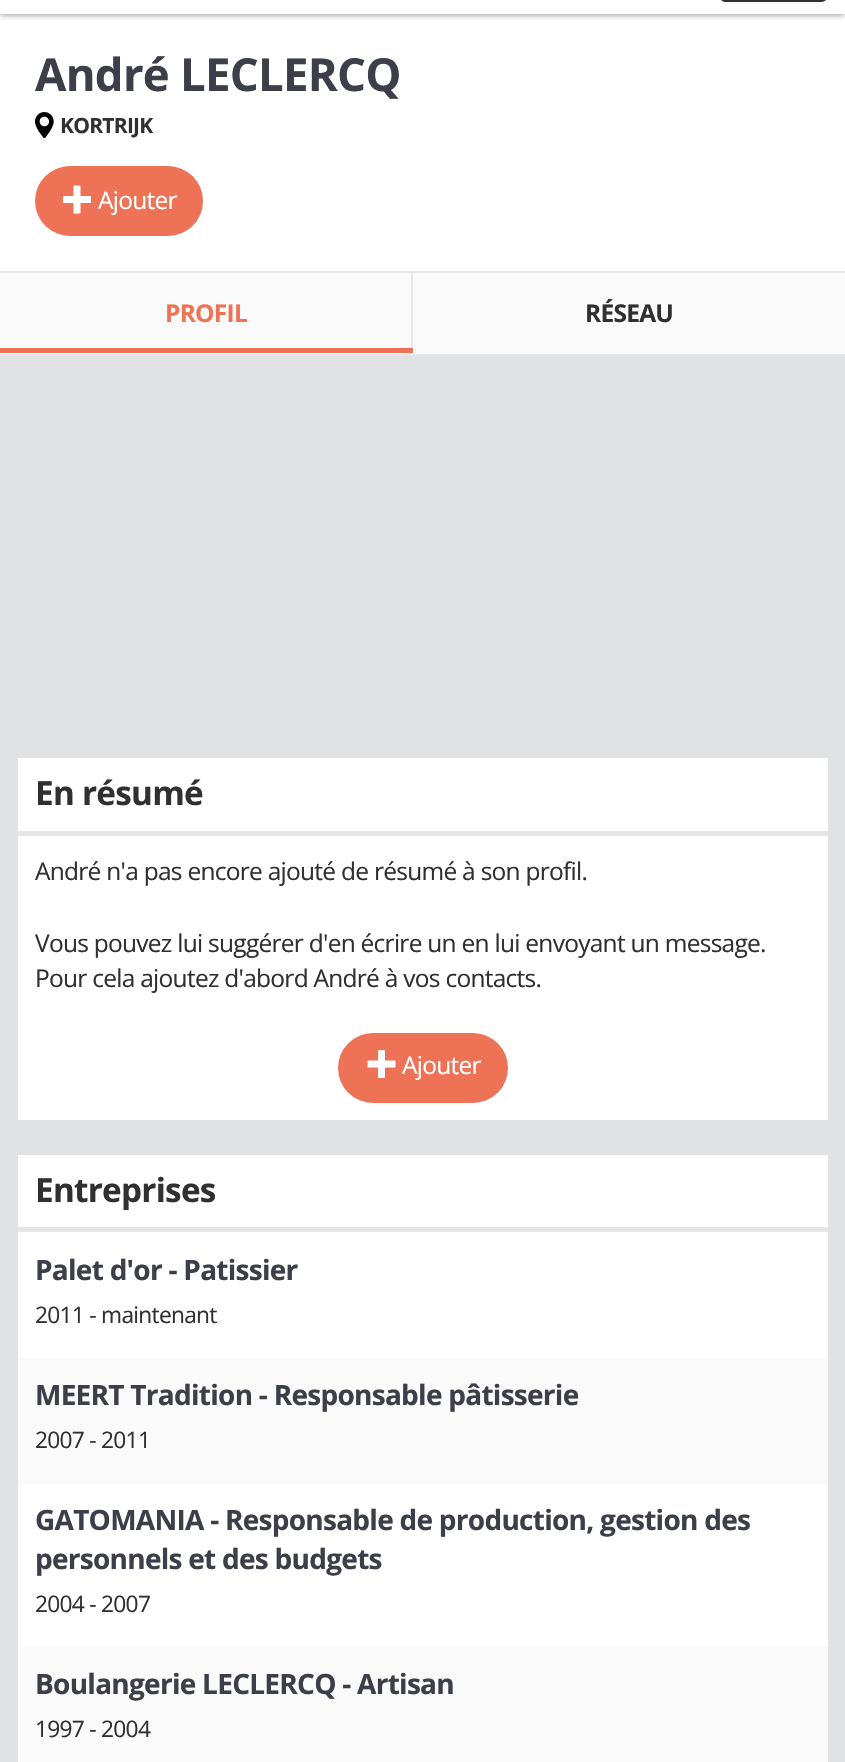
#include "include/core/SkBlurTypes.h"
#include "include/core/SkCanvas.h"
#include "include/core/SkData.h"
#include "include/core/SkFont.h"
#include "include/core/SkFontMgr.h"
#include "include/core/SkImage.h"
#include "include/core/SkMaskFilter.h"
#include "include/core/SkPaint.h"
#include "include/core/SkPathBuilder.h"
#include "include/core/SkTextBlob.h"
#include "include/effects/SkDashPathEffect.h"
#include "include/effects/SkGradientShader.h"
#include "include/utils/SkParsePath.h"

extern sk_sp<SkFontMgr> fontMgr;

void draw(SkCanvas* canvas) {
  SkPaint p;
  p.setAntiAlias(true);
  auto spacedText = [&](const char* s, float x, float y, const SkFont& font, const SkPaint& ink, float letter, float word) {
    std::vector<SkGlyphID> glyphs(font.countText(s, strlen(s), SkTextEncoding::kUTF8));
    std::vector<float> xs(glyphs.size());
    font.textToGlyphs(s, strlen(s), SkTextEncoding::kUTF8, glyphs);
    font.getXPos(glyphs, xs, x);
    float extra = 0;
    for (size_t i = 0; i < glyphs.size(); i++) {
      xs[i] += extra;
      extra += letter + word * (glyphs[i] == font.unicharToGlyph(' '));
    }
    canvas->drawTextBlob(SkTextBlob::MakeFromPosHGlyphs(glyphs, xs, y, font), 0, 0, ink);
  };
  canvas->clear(SK_ColorWHITE);
  canvas->save();
  canvas->clipRect(SkRect::MakeLTRB(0, 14, 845, 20));
  p.setColor(SkColorSetARGB(128, 0, 0, 0));
  p.setMaskFilter(SkMaskFilter::MakeBlur(kNormal_SkBlurStyle, 3.5f));
  canvas->drawRect(SkRect::MakeLTRB(0, -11, 845, 14), p);
  p.setMaskFilter(nullptr);
  canvas->restore();
  p.setStyle(SkPaint::kStroke_Style);
  p.setStrokeWidth(2);
  p.setColor(SkColorSetRGB(48, 48, 48));
  canvas->drawRoundRect(SkRect::MakeLTRB(720, -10, 827, 1), 8, 8, p);
  canvas->drawImageRect(SkImages::DeferredFromEncodedData(SkData::MakeFromFileName("images/1.png")), SkRect::MakeLTRB(35, 112, 54, 138), SkSamplingOptions());
  p.setStyle(SkPaint::kFill_Style);
  p.setColor(SkColorSetRGB(238, 115, 86));
  canvas->drawRoundRect(SkRect::MakeLTRB(35, 166, 203, 236), 35, 35, p);
  canvas->drawImageRect(SkImages::DeferredFromEncodedData(SkData::MakeFromFileName("images/2.png")), SkRect::MakeLTRB(63, 185, 91, 214), SkSamplingOptions());
  p.setColor(SkColorSetRGB(229, 231, 234));
  canvas->drawRect(SkRect::MakeLTRB(0, 271, 845, 273), p);
  canvas->drawRect(SkRect::MakeLTRB(0, 354, 845, 356), p);
  p.setColor(SkColorSetRGB(250, 250, 250));
  canvas->drawRect(SkRect::MakeLTRB(0, 273, 411, 354), p);
  p.setColor(SkColorSetRGB(229, 231, 234));
  canvas->drawRect(SkRect::MakeLTRB(411, 273, 413, 354), p);
  p.setColor(SkColorSetRGB(238, 115, 86));
  canvas->drawRect(SkRect::MakeLTRB(0, 348, 413, 353), p);
  p.setColor(SkColorSetRGB(250, 250, 250));
  canvas->drawRect(SkRect::MakeLTRB(413, 273, 845, 354), p);
  p.setColor(SkColorSetRGB(224, 226, 228));
  canvas->drawRect(SkRect::MakeLTRB(0, 356, 845, 1762), p);
  p.setColor(SK_ColorWHITE);
  canvas->drawRect(SkRect::MakeLTRB(18, 758, 828, 1120), p);
  p.setColor(SkColorSetRGB(230, 230, 230));
  canvas->drawRect(SkRect::MakeLTRB(18, 831, 828, 836), p);
  p.setColor(SkColorSetRGB(238, 115, 86));
  canvas->drawRoundRect(SkRect::MakeLTRB(338, 1033, 508, 1103), 35, 35, p);
  canvas->drawImageRect(SkImages::DeferredFromEncodedData(SkData::MakeFromFileName("images/3.png")), SkRect::MakeLTRB(367, 1050, 396, 1078), SkSamplingOptions());
  p.setColor(SK_ColorWHITE);
  canvas->drawRect(SkRect::MakeLTRB(18, 1155, 828, 1647), p);
  p.setColor(SkColorSetRGB(230, 230, 230));
  canvas->drawRect(SkRect::MakeLTRB(18, 1227, 828, 1232), p);
  p.setColor(SkColorSetRGB(250, 250, 250));
  canvas->drawRect(SkRect::MakeLTRB(18, 1358, 828, 1484), p);
  canvas->drawRect(SkRect::MakeLTRB(18, 1647, 828, 1762), p);
  SkFont font1(fontMgr->matchFamilyStyle("Open Sans", SkFontStyle::Bold()), 45.5f);
  font1.setSubpixel(true);
  p.setColor(SkColorSetRGB(60, 62, 73));
  spacedText("André LECLERCQ", 35, 91, font1, p, -0.73f, 0);
  SkFont font2(fontMgr->matchFamilyStyle("Open Sans", SkFontStyle::Bold()), 21);
  font2.setSubpixel(true);
  p.setColor(SkColorSetRGB(48, 48, 48));
  spacedText("KORTRIJK", 60, 133, font2, p, -0.73f, 0);
  SkFont font3(fontMgr->matchFamilyStyle("Open Sans", SkFontStyle::Normal()), 24.5f);
  font3.setSubpixel(true);
  p.setColor(SK_ColorWHITE);
  spacedText("Ajouter", 98, 209, font3, p, -0.73f, 0);
  SkFont font4(fontMgr->matchFamilyStyle("Open Sans", SkFontStyle::Bold()), 24.5f);
  font4.setSubpixel(true);
  p.setColor(SkColorSetRGB(238, 115, 86));
  spacedText("PROFIL", 165, 322, font4, p, -0.73f, 0);
  p.setColor(SkColorSetRGB(48, 48, 48));
  spacedText("RÉSEAU", 585, 322, font4, p, -0.73f, 0);
  SkFont font5(fontMgr->matchFamilyStyle("Open Sans", SkFontStyle::Bold()), 33.25f);
  font5.setSubpixel(true);
  spacedText("En résumé", 35, 805, font5, p, -0.73f, 0);
  spacedText("André n'a pas encore ajouté de résumé à son profil.", 35, 880, font3, p, -0.73f, 0);
  spacedText("Vous pouvez lui suggérer d'en écrire un en lui envoyant un message.", 35, 952, font3, p, -0.73f, 0);
  spacedText("Pour cela ajoutez d'abord André à vos contacts.", 35, 987, font3, p, -0.73f, 0);
  p.setColor(SK_ColorWHITE);
  spacedText("Ajouter", 402, 1074, font3, p, -0.73f, 0);
  p.setColor(SkColorSetRGB(48, 48, 48));
  spacedText("Entreprises", 35, 1202, font5, p, -0.73f, 0);
  SkFont font6(fontMgr->matchFamilyStyle("Open Sans", SkFontStyle::Bold()), 28);
  font6.setSubpixel(true);
  p.setColor(SkColorSetRGB(60, 62, 73));
  spacedText("Palet d'or - Patissier", 35, 1280, font6, p, -0.73f, 0);
  SkFont font7(fontMgr->matchFamilyStyle("Open Sans", SkFontStyle::Normal()), 22.75f);
  font7.setSubpixel(true);
  p.setColor(SkColorSetRGB(48, 48, 48));
  spacedText("2011 - maintenant", 35, 1323, font7, p, -0.73f, 0);
  p.setColor(SkColorSetRGB(60, 62, 73));
  spacedText("MEERT Tradition - Responsable pâtisserie", 35, 1405, font6, p, -0.73f, 0);
  p.setColor(SkColorSetRGB(48, 48, 48));
  spacedText("2007 - 2011", 35, 1448, font7, p, -0.73f, 0);
  p.setColor(SkColorSetRGB(60, 62, 73));
  spacedText("GATOMANIA - Responsable de production, gestion des", 35, 1530, font6, p, -0.73f, 0);
  spacedText("personnels et des budgets", 35, 1569, font6, p, -0.73f, 0);
  p.setColor(SkColorSetRGB(48, 48, 48));
  spacedText("2004 - 2007", 35, 1612, font7, p, -0.73f, 0);
  p.setColor(SkColorSetRGB(60, 62, 73));
  spacedText("Boulangerie LECLERCQ - Artisan", 35, 1694, font6, p, -0.73f, 0);
  p.setColor(SkColorSetRGB(48, 48, 48));
  spacedText("1997 - 2004", 35, 1737, font7, p, -0.73f, 0);
}
